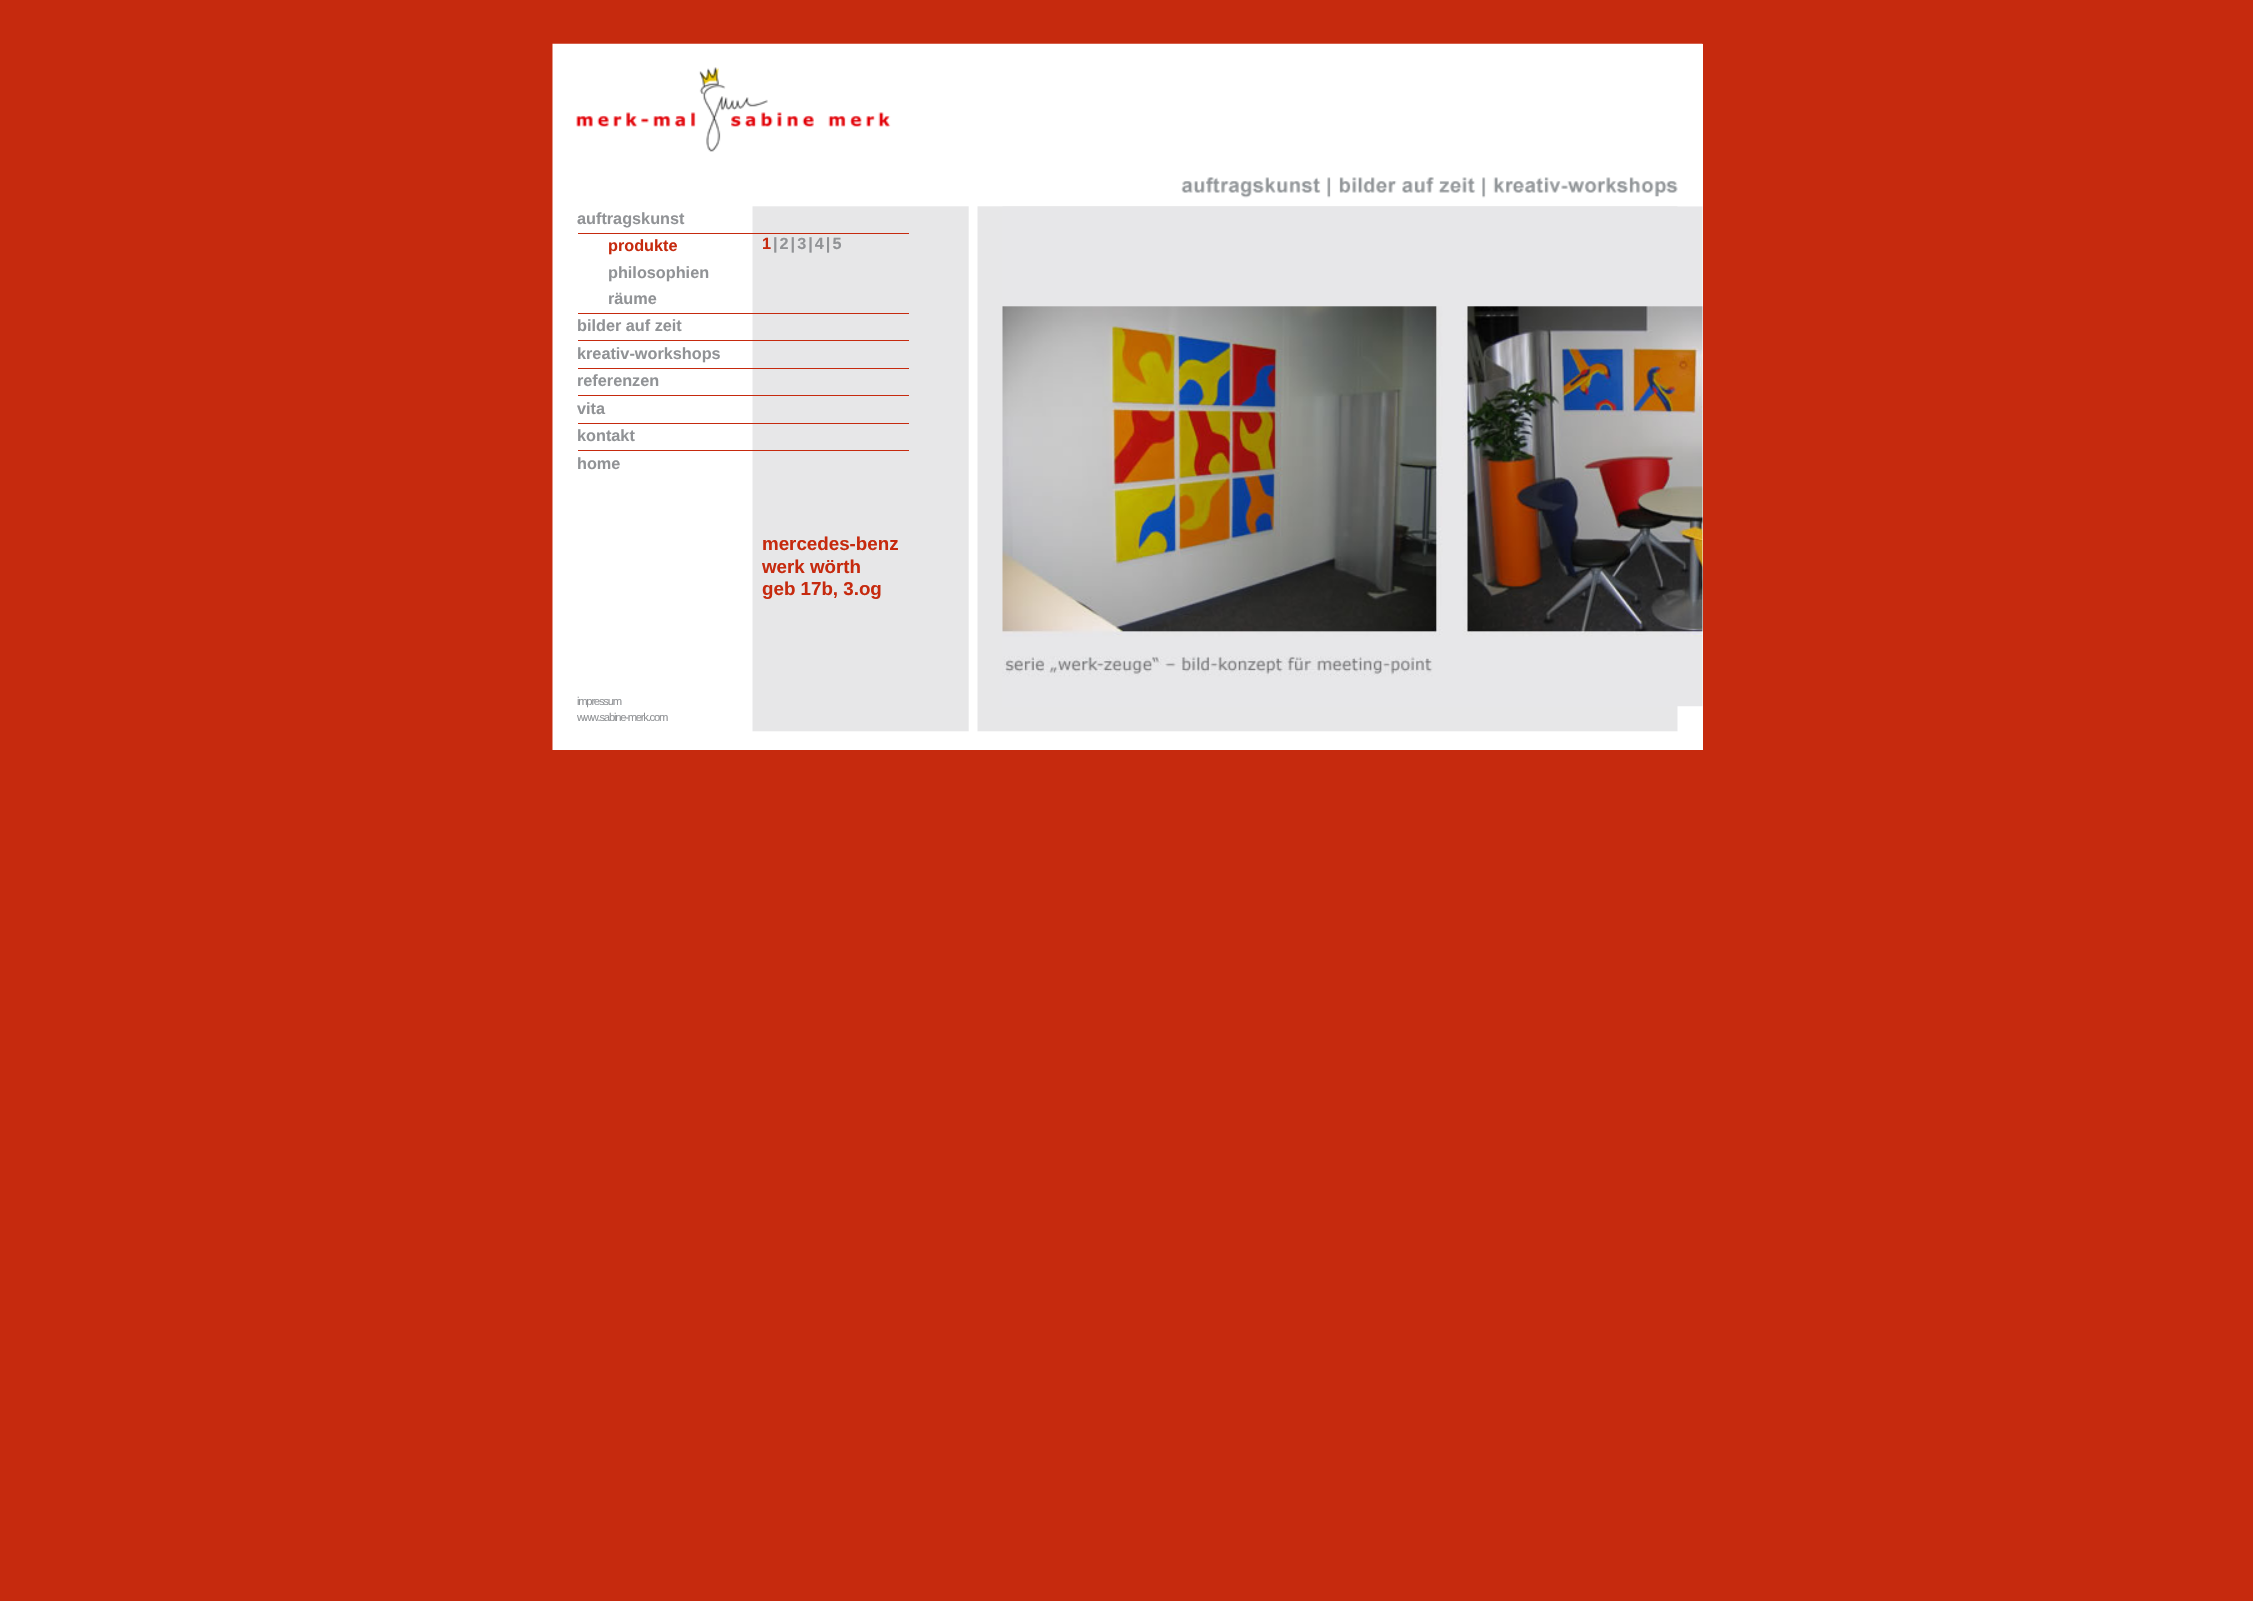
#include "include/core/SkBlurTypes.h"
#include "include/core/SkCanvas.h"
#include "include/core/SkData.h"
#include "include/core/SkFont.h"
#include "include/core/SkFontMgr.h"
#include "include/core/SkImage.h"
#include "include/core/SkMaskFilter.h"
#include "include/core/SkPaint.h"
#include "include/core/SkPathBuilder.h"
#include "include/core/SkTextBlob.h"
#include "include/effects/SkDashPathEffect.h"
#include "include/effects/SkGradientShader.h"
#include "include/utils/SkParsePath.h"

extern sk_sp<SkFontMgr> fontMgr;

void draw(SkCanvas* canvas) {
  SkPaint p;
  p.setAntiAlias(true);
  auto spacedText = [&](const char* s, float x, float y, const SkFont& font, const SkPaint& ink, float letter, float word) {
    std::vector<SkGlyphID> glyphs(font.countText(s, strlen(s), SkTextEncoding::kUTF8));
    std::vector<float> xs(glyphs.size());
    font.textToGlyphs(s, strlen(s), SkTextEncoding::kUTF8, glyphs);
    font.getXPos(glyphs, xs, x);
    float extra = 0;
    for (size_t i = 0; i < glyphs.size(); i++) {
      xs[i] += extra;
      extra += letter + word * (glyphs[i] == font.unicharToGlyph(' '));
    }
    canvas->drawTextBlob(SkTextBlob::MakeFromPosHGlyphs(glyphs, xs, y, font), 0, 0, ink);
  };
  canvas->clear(SkColorSetRGB(198, 42, 14));
  p.setColor(SK_ColorWHITE);
  canvas->drawRect(SkRect::MakeLTRB(1702, 44, 1703, 750), p);
  canvas->drawImageRect(SkImages::DeferredFromEncodedData(SkData::MakeFromFileName("images/1.png")), SkRect::MakeLTRB(552, 43, 1703, 750), SkSamplingOptions());
  p.setColor(SkColorSetRGB(198, 42, 14));
  canvas->drawRect(SkRect::MakeLTRB(578, 233, 909, 234), p);
  canvas->drawRect(SkRect::MakeLTRB(578, 313, 909, 314), p);
  canvas->drawRect(SkRect::MakeLTRB(578, 340, 909, 341), p);
  canvas->drawRect(SkRect::MakeLTRB(578, 368, 909, 369), p);
  canvas->drawRect(SkRect::MakeLTRB(578, 395, 909, 396), p);
  canvas->drawRect(SkRect::MakeLTRB(578, 423, 909, 424), p);
  canvas->drawRect(SkRect::MakeLTRB(578, 450, 909, 451), p);
  canvas->drawImageRect(SkImages::DeferredFromEncodedData(SkData::MakeFromFileName("images/2.png")), SkRect::MakeLTRB(1002, 206, 1703, 707), SkSamplingOptions());
  SkFont font1(fontMgr->matchFamilyStyle("Liberation Sans", SkFontStyle::Bold()), 16.25f);
  font1.setSubpixel(true);
  p.setColor(SkColorSetRGB(145, 147, 150));
  canvas->drawString("auftragskunst", 577, 224, font1, p);
  p.setColor(SkColorSetRGB(198, 42, 14));
  canvas->drawString("produkte", 608, 251, font1, p);
  p.setColor(SkColorSetRGB(145, 147, 150));
  canvas->drawString("philosophien", 608, 278, font1, p);
  canvas->drawString("räume", 608, 304, font1, p);
  canvas->drawString("bilder auf zeit", 577, 331, font1, p);
  canvas->drawString("kreativ-workshops", 577, 359, font1, p);
  canvas->drawString("referenzen", 577, 386, font1, p);
  canvas->drawString("vita", 577, 414, font1, p);
  canvas->drawString("kontakt", 577, 441, font1, p);
  canvas->drawString("home", 577, 469, font1, p);
  p.setColor(SkColorSetRGB(198, 42, 14));
  spacedText("1", 762, 249, font1, p, -1.25f, 0);
  p.setColor(SkColorSetRGB(145, 147, 150));
  spacedText("| 2 | 3 | 4 | 5", 773, 249, font1, p, -1.25f, 0);
  SkFont font2(fontMgr->matchFamilyStyle("Liberation Sans", SkFontStyle::Bold()), 18.75f);
  font2.setSubpixel(true);
  p.setColor(SkColorSetRGB(198, 42, 14));
  canvas->drawString("mercedes-benz", 762, 550, font2, p);
  canvas->drawString("werk wörth", 762, 573, font2, p);
  canvas->drawString("geb 17b, 3.og", 762, 595, font2, p);
  SkFont font3(fontMgr->matchFamilyStyle("Liberation Sans", SkFontStyle::Normal()), 11.25f);
  font3.setSubpixel(true);
  p.setColor(SkColorSetRGB(145, 147, 150));
  spacedText("impressum", 577, 705, font3, p, -1.25f, 0);
  spacedText("www.sabine-merk.com", 577, 721, font3, p, -1.25f, 0);
}
